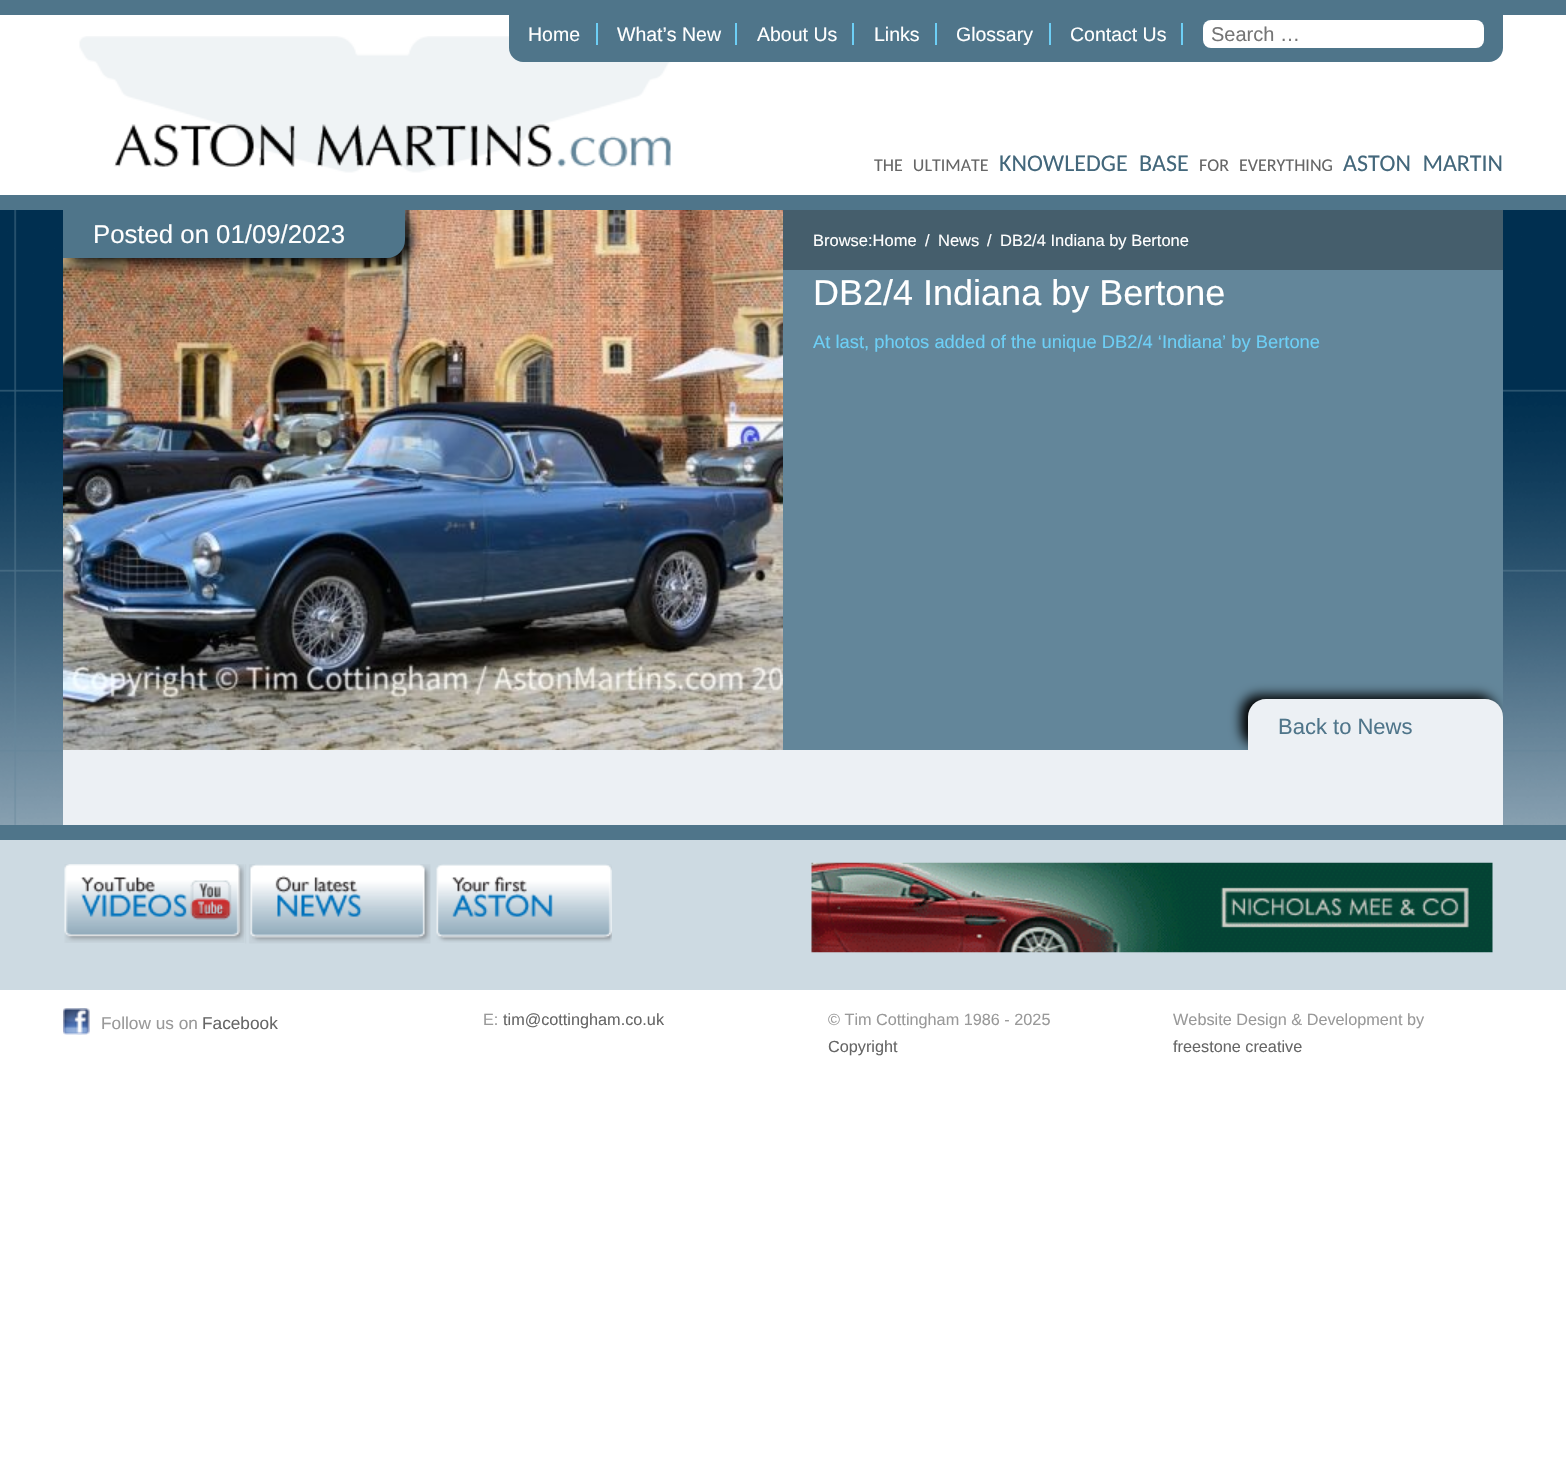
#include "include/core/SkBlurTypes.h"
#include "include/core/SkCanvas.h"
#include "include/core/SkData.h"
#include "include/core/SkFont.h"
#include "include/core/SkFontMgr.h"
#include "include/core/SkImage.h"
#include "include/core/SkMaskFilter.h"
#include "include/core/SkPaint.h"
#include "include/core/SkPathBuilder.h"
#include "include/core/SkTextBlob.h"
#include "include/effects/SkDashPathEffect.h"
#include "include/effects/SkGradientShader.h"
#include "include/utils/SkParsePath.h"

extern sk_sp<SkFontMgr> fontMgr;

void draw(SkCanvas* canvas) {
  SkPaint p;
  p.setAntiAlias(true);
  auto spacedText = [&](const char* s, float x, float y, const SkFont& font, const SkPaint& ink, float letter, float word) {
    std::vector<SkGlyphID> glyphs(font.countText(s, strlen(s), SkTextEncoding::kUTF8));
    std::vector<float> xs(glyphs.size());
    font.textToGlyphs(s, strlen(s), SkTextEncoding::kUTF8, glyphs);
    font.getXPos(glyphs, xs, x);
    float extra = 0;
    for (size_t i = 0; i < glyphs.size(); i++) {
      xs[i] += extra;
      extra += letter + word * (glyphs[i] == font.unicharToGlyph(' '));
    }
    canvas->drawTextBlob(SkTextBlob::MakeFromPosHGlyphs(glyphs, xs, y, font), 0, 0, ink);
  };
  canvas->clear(SK_ColorWHITE);
  p.setColor(SkColorSetRGB(79, 117, 138));
  canvas->drawRect(SkRect::MakeLTRB(0, 0, 1566, 15), p);
  canvas->drawImageRect(SkImages::DeferredFromEncodedData(SkData::MakeFromFileName("images/1.png")), SkRect::MakeLTRB(79, 36, 686, 173), SkSamplingOptions());
  canvas->drawPath(SkPathBuilder().moveTo(509, 15).lineTo(1503, 15).lineTo(1503, 48).cubicTo(1503, 55.5f, 1496.5f, 62, 1489, 62).lineTo(523, 62).cubicTo(515.5f, 62, 509, 55.5f, 509, 48).close().detach(), p);
  p.setColor(SkColorSetRGB(109, 207, 246));
  canvas->drawRect(SkRect::MakeLTRB(596, 23, 598, 45), p);
  canvas->drawRect(SkRect::MakeLTRB(735, 23, 737, 45), p);
  canvas->drawRect(SkRect::MakeLTRB(852, 23, 854, 45), p);
  canvas->drawRect(SkRect::MakeLTRB(935, 23, 937, 45), p);
  canvas->drawRect(SkRect::MakeLTRB(1049, 23, 1051, 45), p);
  canvas->drawRect(SkRect::MakeLTRB(1181, 23, 1183, 45), p);
  p.setColor(SK_ColorWHITE);
  canvas->drawRoundRect(SkRect::MakeLTRB(1203, 20, 1484, 48), 8, 8, p);
  canvas->drawImageRect(SkImages::DeferredFromEncodedData(SkData::MakeFromFileName("images/2.png")), SkRect::MakeLTRB(0, 210, 1566, 825), SkSamplingOptions());
  p.setColor(SkColorSetRGB(79, 117, 138));
  canvas->drawRect(SkRect::MakeLTRB(0, 195, 1566, 210), p);
  canvas->drawRect(SkRect::MakeLTRB(0, 825, 1566, 840), p);
  p.setColor(SkColorSetRGB(99, 134, 154));
  canvas->drawRect(SkRect::MakeLTRB(783, 270, 1503, 750), p);
  canvas->drawImageRect(SkImages::DeferredFromEncodedData(SkData::MakeFromFileName("images/3.png")), SkRect::MakeLTRB(63, 210, 783, 750), SkSamplingOptions());
  canvas->save();
  canvas->clipRect(SkRect::MakeLTRB(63, 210, 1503, 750));
  p.setColor(SK_ColorBLACK);
  p.setMaskFilter(SkMaskFilter::MakeBlur(kNormal_SkBlurStyle, 7.5f));
  canvas->drawRoundRect(SkRect::MakeLTRB(68, 215, 410, 263), 18, 18, p);
  p.setMaskFilter(nullptr);
  canvas->restore();
  p.setColor(SkColorSetRGB(79, 117, 138));
  canvas->drawPath(SkPathBuilder().moveTo(63, 210).lineTo(405, 210).lineTo(405, 240).cubicTo(405, 250, 397, 258, 387, 258).lineTo(63, 258).close().detach(), p);
  p.setColor(SkColorSetRGB(69, 94, 108));
  canvas->drawRect(SkRect::MakeLTRB(783, 210, 1503, 270), p);
  canvas->save();
  canvas->clipRect(SkRect::MakeLTRB(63, 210, 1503, 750));
  p.setColor(SK_ColorBLACK);
  p.setMaskFilter(SkMaskFilter::MakeBlur(kNormal_SkBlurStyle, 6));
  canvas->drawRoundRect(SkRect::MakeLTRB(1241, 695, 1496, 746), 18, 18, p);
  p.setMaskFilter(nullptr);
  canvas->restore();
  p.setColor(SkColorSetRGB(236, 240, 244));
  canvas->drawPath(SkPathBuilder().moveTo(1266, 699).lineTo(1485, 699).cubicTo(1495, 699, 1503, 707, 1503, 717).lineTo(1503, 750).lineTo(1248, 750).lineTo(1248, 717).cubicTo(1248, 707, 1256, 699, 1266, 699).close().detach(), p);
  canvas->drawRect(SkRect::MakeLTRB(63, 750, 1503, 825), p);
  p.setColor(SkColorSetRGB(205, 218, 226));
  canvas->drawRect(SkRect::MakeLTRB(0, 840, 1566, 990), p);
  canvas->drawImageRect(SkImages::DeferredFromEncodedData(SkData::MakeFromFileName("images/4.png")), SkRect::MakeLTRB(64, 864, 245, 943), SkSamplingOptions());
  canvas->drawImageRect(SkImages::DeferredFromEncodedData(SkData::MakeFromFileName("images/5.png")), SkRect::MakeLTRB(245, 864, 431, 944), SkSamplingOptions());
  canvas->drawImageRect(SkImages::DeferredFromEncodedData(SkData::MakeFromFileName("images/6.png")), SkRect::MakeLTRB(436, 864, 612, 943), SkSamplingOptions());
  canvas->drawImageRect(SkImages::DeferredFromEncodedData(SkData::MakeFromFileName("images/7.png")), SkRect::MakeLTRB(811, 862, 1493, 953), SkSamplingOptions());
  canvas->drawImageRect(SkImages::DeferredFromEncodedData(SkData::MakeFromFileName("images/8.png")), SkRect::MakeLTRB(63, 1008, 90, 1035), SkSamplingOptions());
  SkFont font1(fontMgr->matchFamilyStyle("Liberation Sans", SkFontStyle::Normal()), 19.5f);
  font1.setSubpixel(true);
  p.setColor(SK_ColorWHITE);
  canvas->drawString("Home", 528, 41, font1, p);
  canvas->drawString("What’s New", 617, 41, font1, p);
  canvas->drawString("About Us", 757, 41, font1, p);
  canvas->drawString("Links", 874, 41, font1, p);
  canvas->drawString("Glossary", 956, 41, font1, p);
  canvas->drawString("Contact Us", 1070, 41, font1, p);
  SkFont font2(fontMgr->matchFamilyStyle("Liberation Sans", SkFontStyle::Normal()), 20);
  font2.setSubpixel(true);
  p.setColor(SkColorSetRGB(117, 117, 117));
  canvas->drawString("Search …", 1211, 41, font2, p);
  SkFont font3(fontMgr->matchFamilyStyle("Carlito", SkFontStyle::Normal()), 18);
  font3.setSubpixel(true);
  p.setColor(SkColorSetRGB(102, 102, 102));
  spacedText("THE ULTIMATE", 874, 171, font3, p, 0, 6);
  SkFont font4(fontMgr->matchFamilyStyle("Carlito", SkFontStyle::Normal()), 24);
  font4.setSubpixel(true);
  p.setColor(SkColorSetRGB(67, 103, 123));
  spacedText("KNOWLEDGE BASE", 999, 171, font4, p, 0, 6);
  p.setColor(SkColorSetRGB(102, 102, 102));
  spacedText("FOR EVERYTHING", 1199, 171, font3, p, 0, 6);
  p.setColor(SkColorSetRGB(67, 103, 123));
  spacedText("ASTON MARTIN", 1343, 171, font4, p, 0, 6);
  SkFont font5(fontMgr->matchFamilyStyle("Liberation Sans", SkFontStyle::Normal()), 25.75f);
  font5.setSubpixel(true);
  p.setColor(SK_ColorWHITE);
  canvas->drawString("Posted on 01/09/2023", 93, 243, font5, p);
  SkFont font6(fontMgr->matchFamilyStyle("Liberation Sans", SkFontStyle::Normal()), 16.5f);
  font6.setSubpixel(true);
  canvas->drawString("Browse:Home", 813, 246, font6, p);
  canvas->drawString("/", 925, 246, font6, p);
  canvas->drawString("News", 938, 246, font6, p);
  canvas->drawString("/", 987, 246, font6, p);
  canvas->drawString("DB2/4 Indiana by Bertone", 1000, 246, font6, p);
  SkFont font7(fontMgr->matchFamilyStyle("Liberation Sans", SkFontStyle::Normal()), 36);
  font7.setSubpixel(true);
  canvas->drawString("DB2/4 Indiana by Bertone", 813, 305, font7, p);
  SkFont font8(fontMgr->matchFamilyStyle("Liberation Sans", SkFontStyle::Normal()), 18.35f);
  font8.setSubpixel(true);
  p.setColor(SkColorSetRGB(109, 207, 246));
  canvas->drawString("At last, photos added of the unique DB2/4 ‘Indiana’ by Bertone", 813, 348, font8, p);
  SkFont font9(fontMgr->matchFamilyStyle("Liberation Sans", SkFontStyle::Normal()), 22);
  font9.setSubpixel(true);
  p.setColor(SkColorSetRGB(79, 117, 138));
  canvas->drawString("Back to News", 1278, 734, font9, p);
  SkFont font10(fontMgr->matchFamilyStyle("Liberation Sans", SkFontStyle::Normal()), 17.25f);
  font10.setSubpixel(true);
  p.setColor(SkColorSetRGB(153, 153, 153));
  canvas->drawString("Follow us on", 101, 1029, font10, p);
  p.setColor(SkColorSetRGB(102, 102, 102));
  canvas->drawString("Facebook", 202, 1029, font10, p);
  SkFont font11(fontMgr->matchFamilyStyle("Liberation Sans", SkFontStyle::Normal()), 16.25f);
  font11.setSubpixel(true);
  p.setColor(SkColorSetRGB(153, 153, 153));
  canvas->drawString("E:", 483, 1025, font11, p);
  p.setColor(SkColorSetRGB(102, 102, 102));
  canvas->drawString("tim@cottingham.co.uk", 503, 1025, font11, p);
  p.setColor(SkColorSetRGB(153, 153, 153));
  canvas->drawString("© Tim Cottingham 1986 - 2025", 828, 1025, font11, p);
  p.setColor(SkColorSetRGB(102, 102, 102));
  canvas->drawString("Copyright", 828, 1052, font11, p);
  p.setColor(SkColorSetRGB(153, 153, 153));
  canvas->drawString("Website Design & Development by", 1173, 1025, font11, p);
  p.setColor(SkColorSetRGB(102, 102, 102));
  canvas->drawString("freestone creative", 1173, 1052, font11, p);
}
